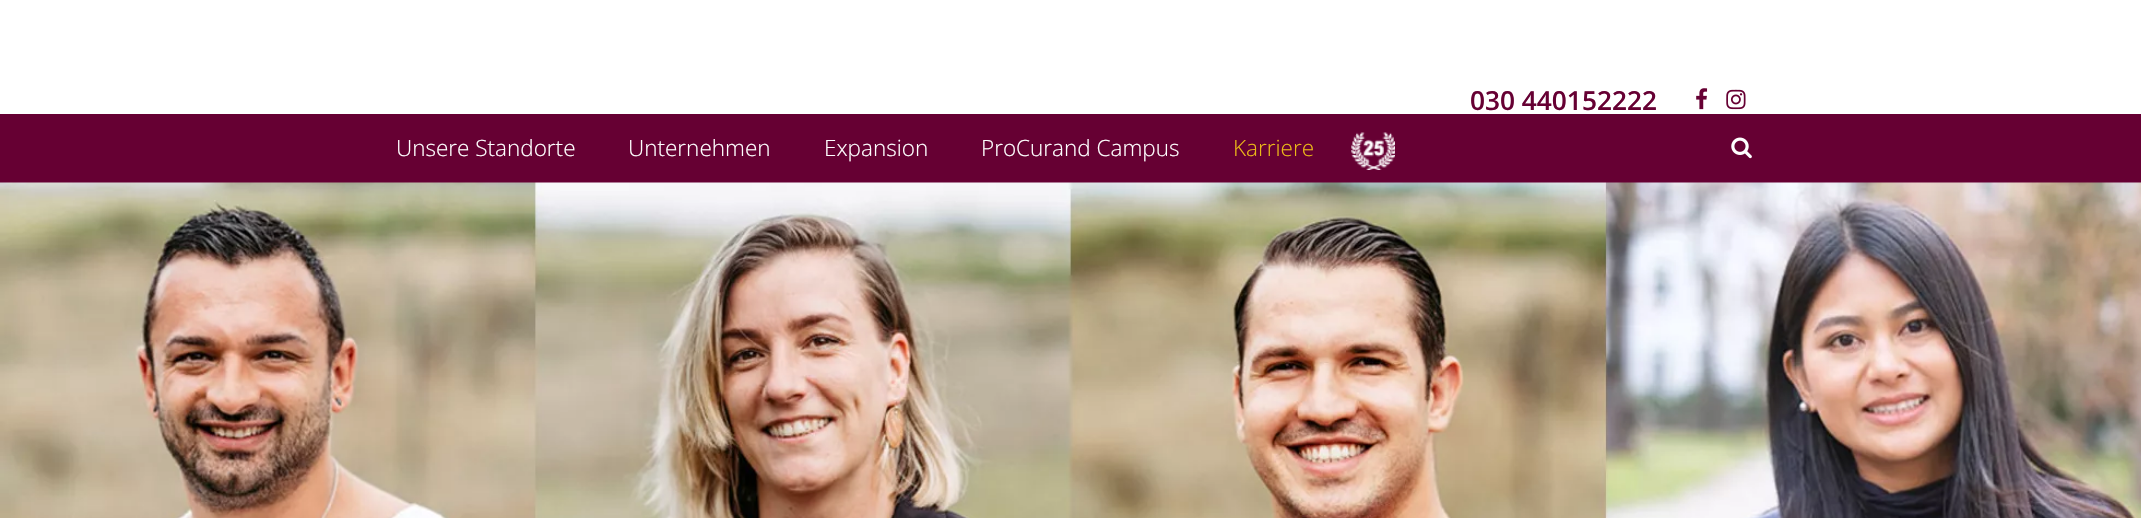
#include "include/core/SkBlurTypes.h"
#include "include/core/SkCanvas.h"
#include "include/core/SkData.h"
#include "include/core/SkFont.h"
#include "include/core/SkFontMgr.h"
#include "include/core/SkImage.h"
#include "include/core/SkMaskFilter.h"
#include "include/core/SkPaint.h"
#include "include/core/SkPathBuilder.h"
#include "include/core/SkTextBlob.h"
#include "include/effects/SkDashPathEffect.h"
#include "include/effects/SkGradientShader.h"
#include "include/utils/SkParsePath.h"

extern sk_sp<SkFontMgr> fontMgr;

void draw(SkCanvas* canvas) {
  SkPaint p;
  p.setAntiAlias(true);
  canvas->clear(SK_ColorWHITE);
  canvas->drawImageRect(SkImages::DeferredFromEncodedData(SkData::MakeFromFileName("images/1.png")), SkRect::MakeLTRB(1696, 88, 1708, 110), SkSamplingOptions());
  canvas->drawImageRect(SkImages::DeferredFromEncodedData(SkData::MakeFromFileName("images/2.png")), SkRect::MakeLTRB(1726, 89, 1746, 110), SkSamplingOptions());
  p.setColor(SkColorSetRGB(102, 0, 51));
  canvas->drawRect(SkRect::MakeLTRB(0, 114, 2141, 183), p);
  canvas->drawImageRect(SkImages::DeferredFromEncodedData(SkData::MakeFromFileName("images/3.png")), SkRect::MakeLTRB(1351, 132, 1395, 170), SkSamplingOptions());
  canvas->drawImageRect(SkImages::DeferredFromEncodedData(SkData::MakeFromFileName("images/4.png")), SkRect::MakeLTRB(1731, 137, 1752, 159), SkSamplingOptions());
  canvas->drawImageRect(SkImages::DeferredFromEncodedData(SkData::MakeFromFileName("images/5.png")), SkRect::MakeLTRB(0, 182, 2141, 518), SkSamplingOptions());
  SkFont font1(fontMgr->matchFamilyStyle("Open Sans", SkFontStyle(600, SkFontStyle::kNormal_Width, SkFontStyle::kUpright_Slant)), 26.25f);
  font1.setSubpixel(true);
  canvas->drawString("030 440152222", 1470, 110, font1, p);
  SkFont font2(fontMgr->matchFamilyStyle("Open Sans", SkFontStyle(300, SkFontStyle::kNormal_Width, SkFontStyle::kUpright_Slant)), 22.5f);
  font2.setSubpixel(true);
  p.setColor(SK_ColorWHITE);
  canvas->drawString("Unsere Standorte", 396, 156, font2, p);
  canvas->drawString("Unternehmen", 628, 156, font2, p);
  canvas->drawString("Expansion", 824, 156, font2, p);
  canvas->drawString("ProCurand Campus", 981, 156, font2, p);
  p.setColor(SkColorSetRGB(234, 184, 24));
  canvas->drawString("Karriere", 1233, 156, font2, p);
}
